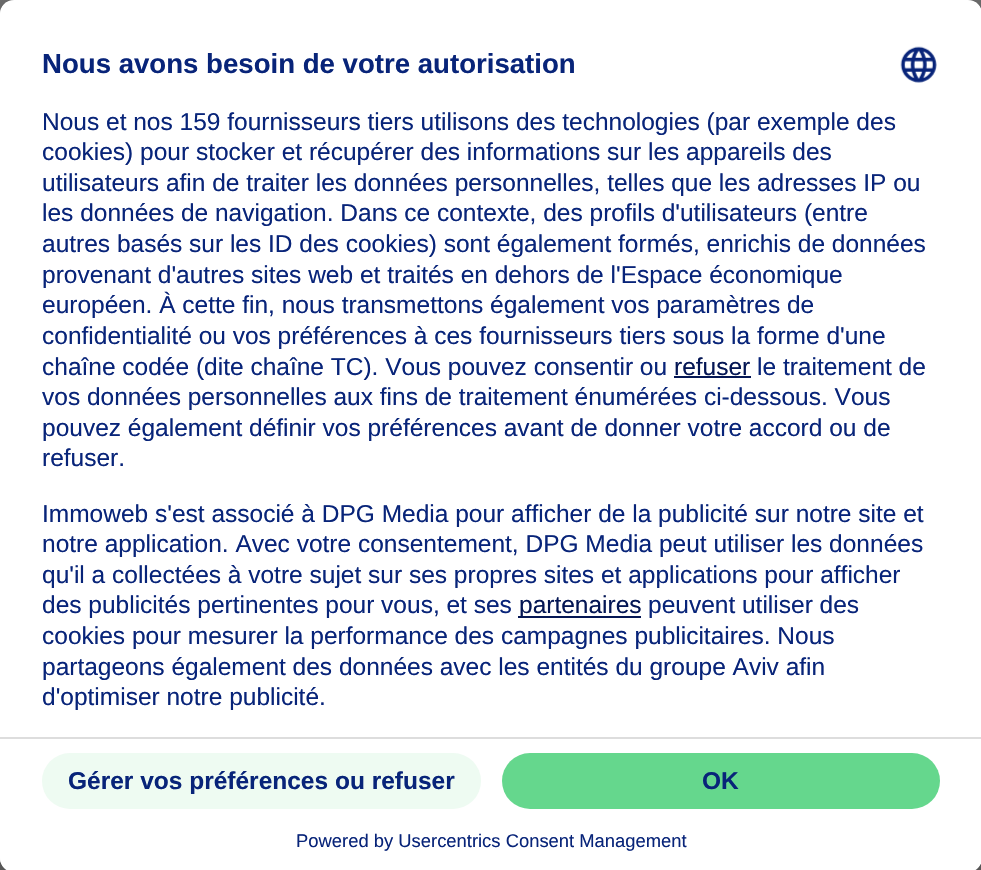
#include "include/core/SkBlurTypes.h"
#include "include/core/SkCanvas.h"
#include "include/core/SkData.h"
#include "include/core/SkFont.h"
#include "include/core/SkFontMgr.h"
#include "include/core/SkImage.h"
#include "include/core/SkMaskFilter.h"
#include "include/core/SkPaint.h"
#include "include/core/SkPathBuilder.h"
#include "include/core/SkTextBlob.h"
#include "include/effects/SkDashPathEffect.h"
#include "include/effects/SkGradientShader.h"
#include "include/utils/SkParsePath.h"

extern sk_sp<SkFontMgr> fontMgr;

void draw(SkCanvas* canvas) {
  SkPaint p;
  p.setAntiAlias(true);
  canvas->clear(SkColorSetRGB(112, 112, 112));
  p.setColor(SkColorSetARGB(77, 0, 0, 0));
  p.setMaskFilter(SkMaskFilter::MakeBlur(kNormal_SkBlurStyle, 24.5f));
  canvas->drawRoundRect(SkRect::MakeLTRB(0, 35, 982, 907), 14, 14, p);
  p.setMaskFilter(nullptr);
  p.setColor(SkColorSetARGB(56, 0, 0, 0));
  p.setMaskFilter(SkMaskFilter::MakeBlur(kNormal_SkBlurStyle, 23));
  canvas->drawRoundRect(SkRect::MakeLTRB(0, 9, 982, 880), 14, 14, p);
  p.setMaskFilter(nullptr);
  p.setColor(SK_ColorWHITE);
  canvas->drawRoundRect(SkRect::MakeLTRB(0, 0, 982, 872), 14, 14, p);
  canvas->save();
  canvas->clipPath(SkPathBuilder().moveTo(14, 0).lineTo(968, 0).cubicTo(975.5f, 0, 982, 6.5f, 982, 14).lineTo(982, 858).cubicTo(982, 865.5f, 975.5f, 872, 968, 872).lineTo(14, 872).cubicTo(6.5f, 872, 0, 865.5f, 0, 858).lineTo(0, 14).cubicTo(0, 6.5f, 6.5f, 0, 14, 0).close().detach(), true);
  canvas->clipPath(SkPathBuilder().moveTo(14, 0).lineTo(968, 0).cubicTo(975.5f, 0, 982, 6.5f, 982, 14).lineTo(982, 737).lineTo(0, 737).lineTo(0, 14).cubicTo(0, 6.5f, 6.5f, 0, 14, 0).close().detach(), true);
  canvas->drawRect(SkRect::MakeLTRB(0, 2, 981, 737), p);
  canvas->restore();
  canvas->drawImageRect(SkImages::DeferredFromEncodedData(SkData::MakeFromFileName("images/1.png")), SkRect::MakeLTRB(900, 46, 937, 83), SkSamplingOptions());
  p.setColor(SkColorSetRGB(4, 22, 84));
  canvas->drawRect(SkRect::MakeLTRB(674, 376, 751, 378), p);
  canvas->drawRect(SkRect::MakeLTRB(518, 616, 641, 618), p);
  p.setColor(SK_ColorWHITE);
  canvas->drawPath(SkPathBuilder().moveTo(0, 737).lineTo(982, 737).lineTo(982, 858).cubicTo(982, 865.5f, 975.5f, 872, 968, 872).lineTo(14, 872).cubicTo(6.5f, 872, 0, 865.5f, 0, 858).close().detach(), p);
  p.setColor(SkColorSetRGB(221, 221, 221));
  canvas->drawRect(SkRect::MakeLTRB(0, 737, 981, 739), p);
  p.setColor(SkColorSetRGB(238, 251, 242));
  canvas->drawRoundRect(SkRect::MakeLTRB(42, 753, 481, 809), 28, 28, p);
  p.setColor(SkColorSetRGB(101, 215, 141));
  canvas->drawRoundRect(SkRect::MakeLTRB(502, 753, 940, 809), 28, 28, p);
  SkFont font1(fontMgr->matchFamilyStyle("Liberation Sans", SkFontStyle::Bold()), 27.6f);
  font1.setSubpixel(true);
  p.setColor(SkColorSetRGB(8, 36, 121));
  canvas->drawString("Nous avons besoin de votre autorisation", 42, 73, font1, p);
  SkFont font2(fontMgr->matchFamilyStyle("Liberation Sans", SkFontStyle::Normal()), 24.5f);
  font2.setSubpixel(true);
  canvas->drawString("Nous et nos 159 fournisseurs tiers utilisons des technologies (par exemple des", 42, 130, font2, p);
  canvas->drawString("cookies) pour stocker et récupérer des informations sur les appareils des", 42, 160, font2, p);
  canvas->drawString("utilisateurs afin de traiter les données personnelles, telles que les adresses IP ou", 42, 191, font2, p);
  canvas->drawString("les données de navigation. Dans ce contexte, des profils d'utilisateurs (entre", 42, 221, font2, p);
  canvas->drawString("autres basés sur les ID des cookies) sont également formés, enrichis de données", 42, 252, font2, p);
  canvas->drawString("provenant d'autres sites web et traités en dehors de l'Espace économique", 42, 283, font2, p);
  canvas->drawString("européen. À cette fin, nous transmettons également vos paramètres de", 42, 313, font2, p);
  canvas->drawString("confidentialité ou vos préférences à ces fournisseurs tiers sous la forme d'une", 42, 344, font2, p);
  canvas->drawString("chaîne codée (dite chaîne TC). Vous pouvez consentir ou", 42, 375, font2, p);
  p.setColor(SkColorSetRGB(4, 22, 84));
  canvas->drawString("refuser", 674, 375, font2, p);
  p.setColor(SkColorSetRGB(8, 36, 121));
  canvas->drawString("le traitement de", 757, 375, font2, p);
  canvas->drawString("vos données personnelles aux fins de traitement énumérées ci-dessous. Vous", 42, 405, font2, p);
  canvas->drawString("pouvez également définir vos préférences avant de donner votre accord ou de", 42, 436, font2, p);
  canvas->drawString("refuser.", 42, 466, font2, p);
  canvas->drawString("Immoweb s'est associé à DPG Media pour afficher de la publicité sur notre site et", 42, 522, font2, p);
  canvas->drawString("notre application. Avec votre consentement, DPG Media peut utiliser les données", 42, 552, font2, p);
  canvas->drawString("qu'il a collectées à votre sujet sur ses propres sites et applications pour afficher", 42, 583, font2, p);
  canvas->drawString("des publicités pertinentes pour vous, et ses", 42, 613, font2, p);
  p.setColor(SkColorSetRGB(4, 22, 84));
  canvas->drawString("partenaires", 519, 613, font2, p);
  p.setColor(SkColorSetRGB(8, 36, 121));
  canvas->drawString("peuvent utiliser des", 648, 613, font2, p);
  canvas->drawString("cookies pour mesurer la performance des campagnes publicitaires. Nous", 42, 644, font2, p);
  canvas->drawString("partageons également des données avec les entités du groupe Aviv afin", 42, 675, font2, p);
  canvas->drawString("d'optimiser notre publicité.", 42, 705, font2, p);
  SkFont font3(fontMgr->matchFamilyStyle("Liberation Sans", SkFontStyle::Bold()), 24.5f);
  font3.setSubpixel(true);
  canvas->drawString("Gérer vos préférences ou refuser", 68, 789, font3, p);
  canvas->drawString("OK", 702, 789, font3, p);
  SkFont font4(fontMgr->matchFamilyStyle("Liberation Sans", SkFontStyle::Normal()), 18.4f);
  font4.setSubpixel(true);
  canvas->drawString("Powered by Usercentrics Consent Management", 296, 847, font4, p);
}
